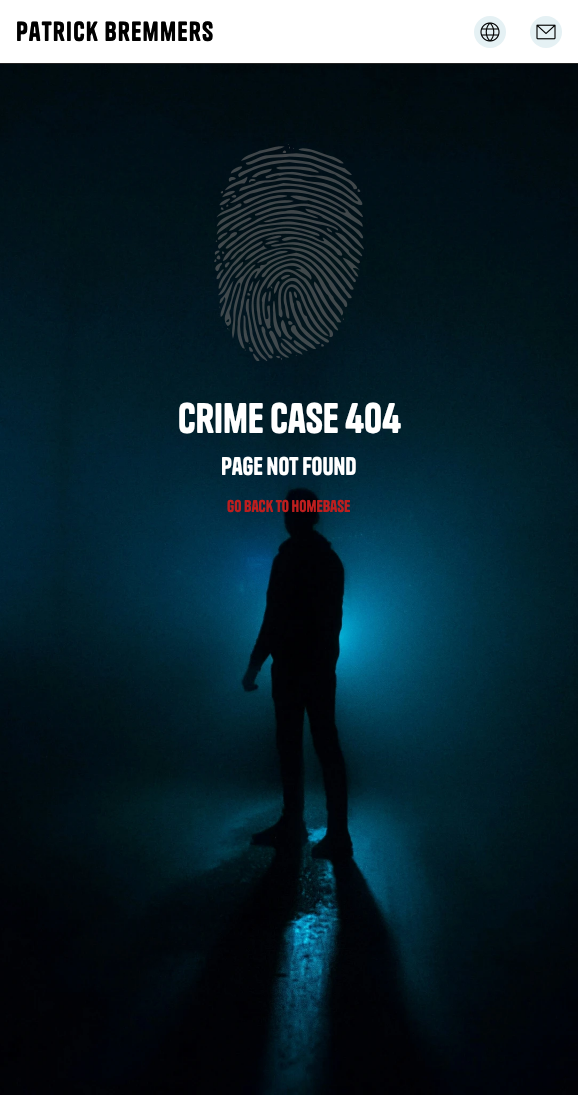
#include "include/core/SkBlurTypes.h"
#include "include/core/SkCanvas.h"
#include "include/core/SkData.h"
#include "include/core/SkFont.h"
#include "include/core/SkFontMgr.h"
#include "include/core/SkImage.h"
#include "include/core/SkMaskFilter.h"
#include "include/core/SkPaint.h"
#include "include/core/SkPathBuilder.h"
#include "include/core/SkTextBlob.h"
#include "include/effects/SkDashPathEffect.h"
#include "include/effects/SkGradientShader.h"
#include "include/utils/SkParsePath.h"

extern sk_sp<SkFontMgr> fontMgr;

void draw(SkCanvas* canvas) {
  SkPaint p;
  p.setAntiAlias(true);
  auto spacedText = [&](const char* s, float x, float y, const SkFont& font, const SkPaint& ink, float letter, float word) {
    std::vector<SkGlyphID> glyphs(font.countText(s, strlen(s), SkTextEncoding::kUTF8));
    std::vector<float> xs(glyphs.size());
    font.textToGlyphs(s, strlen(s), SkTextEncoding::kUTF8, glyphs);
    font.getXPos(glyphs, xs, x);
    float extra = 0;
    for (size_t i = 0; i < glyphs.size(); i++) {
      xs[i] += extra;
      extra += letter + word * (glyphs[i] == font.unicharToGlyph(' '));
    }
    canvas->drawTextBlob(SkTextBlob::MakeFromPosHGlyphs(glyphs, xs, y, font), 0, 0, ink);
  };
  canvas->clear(SK_ColorWHITE);
  p.setColor(SkColorSetRGB(229, 241, 244));
  canvas->drawCircle(490, 32, 16, p);
  canvas->drawImageRect(SkImages::DeferredFromEncodedData(SkData::MakeFromFileName("images/1.png")), SkRect::MakeLTRB(480, 22, 500, 42), SkSamplingOptions());
  canvas->drawCircle(546, 32, 16, p);
  canvas->drawImageRect(SkImages::DeferredFromEncodedData(SkData::MakeFromFileName("images/2.png")), SkRect::MakeLTRB(536, 24, 556, 40), SkSamplingOptions());
  p.setColor(SkColorSetRGB(34, 34, 34));
  canvas->drawRect(SkRect::MakeLTRB(0, 63, 578, 64), p);
  canvas->drawImageRect(SkImages::DeferredFromEncodedData(SkData::MakeFromFileName("images/3.png")), SkRect::MakeLTRB(0, 64, 578, 1095), SkSamplingOptions());
  canvas->drawImageRect(SkImages::DeferredFromEncodedData(SkData::MakeFromFileName("images/4.png")), SkRect::MakeLTRB(214, 144, 364, 361), SkSamplingOptions());
  SkFont font1(fontMgr->matchFamilyStyle("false", SkFontStyle::Normal()), 26);
  font1.setSubpixel(true);
  p.setColor(SK_ColorBLACK);
  spacedText("Patrick Bremmers", 16, 41, font1, p, 1.25f, 0);
  SkFont font2(fontMgr->matchFamilyStyle("false", SkFontStyle::Normal()), 40);
  font2.setSubpixel(true);
  p.setColor(SK_ColorWHITE);
  canvas->drawString("Crime Case 404", 178, 433, font2, p);
  SkFont font3(fontMgr->matchFamilyStyle("false", SkFontStyle::Normal()), 24);
  font3.setSubpixel(true);
  canvas->drawString("Page not found", 221, 475, font3, p);
  SkFont font4(fontMgr->matchFamilyStyle("false", SkFontStyle::Normal()), 16);
  font4.setSubpixel(true);
  p.setColor(SkColorSetRGB(189, 30, 30));
  canvas->drawString("Go Back to homebase", 227, 512, font4, p);
}
